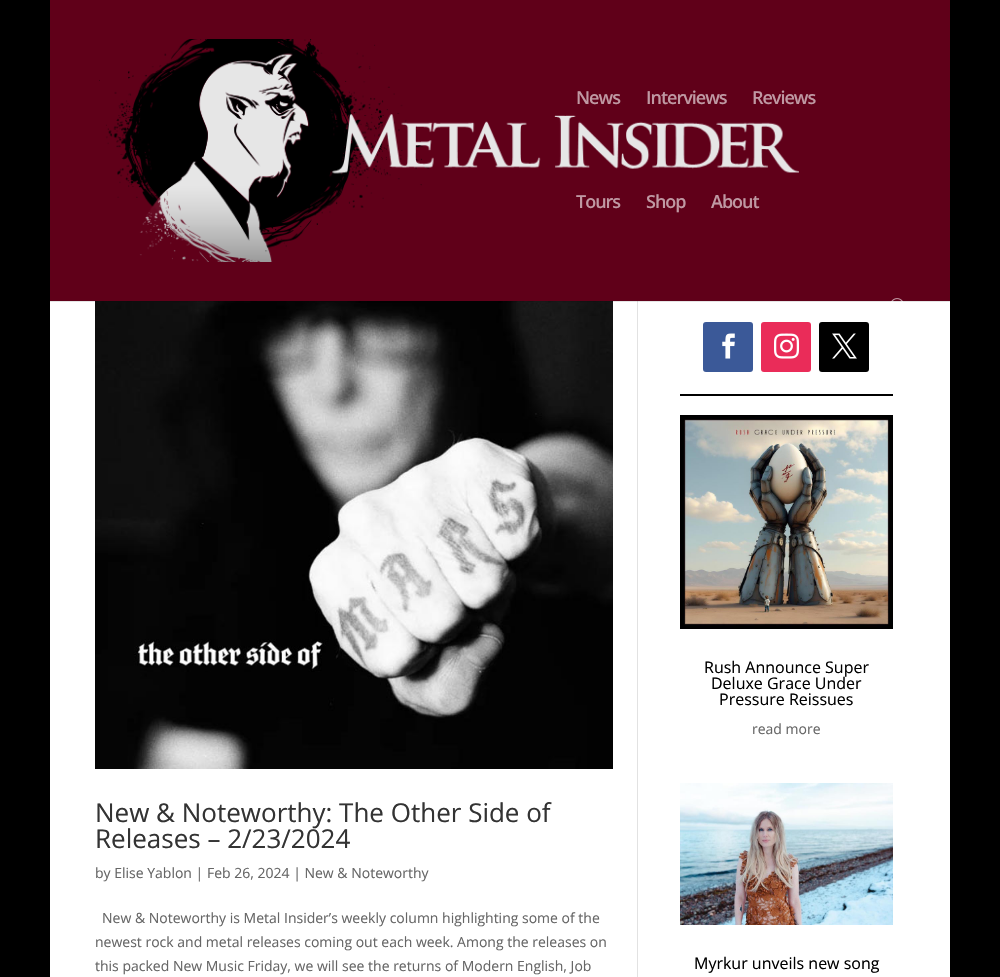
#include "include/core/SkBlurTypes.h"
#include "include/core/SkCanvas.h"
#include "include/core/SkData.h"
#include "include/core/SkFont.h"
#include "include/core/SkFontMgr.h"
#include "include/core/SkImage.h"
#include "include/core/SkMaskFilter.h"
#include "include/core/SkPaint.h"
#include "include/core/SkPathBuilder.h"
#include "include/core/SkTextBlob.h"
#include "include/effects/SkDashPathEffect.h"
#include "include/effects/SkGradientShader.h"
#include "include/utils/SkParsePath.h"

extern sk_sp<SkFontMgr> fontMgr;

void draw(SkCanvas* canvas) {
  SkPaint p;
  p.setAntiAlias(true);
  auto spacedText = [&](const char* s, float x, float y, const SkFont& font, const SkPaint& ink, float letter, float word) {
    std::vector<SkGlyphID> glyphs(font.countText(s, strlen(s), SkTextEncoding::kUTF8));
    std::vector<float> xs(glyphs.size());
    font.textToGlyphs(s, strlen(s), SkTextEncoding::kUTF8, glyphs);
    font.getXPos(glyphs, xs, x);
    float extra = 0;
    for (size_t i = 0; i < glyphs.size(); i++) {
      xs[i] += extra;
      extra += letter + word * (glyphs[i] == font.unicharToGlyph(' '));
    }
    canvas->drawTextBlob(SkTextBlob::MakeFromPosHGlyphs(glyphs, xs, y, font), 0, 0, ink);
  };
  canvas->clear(SK_ColorBLACK);
  p.setColor(SK_ColorWHITE);
  canvas->drawRect(SkRect::MakeLTRB(50, 301, 950, 977), p);
  p.setColor(SkColorSetRGB(226, 226, 226));
  canvas->drawRect(SkRect::MakeLTRB(637, 301, 638, 977), p);
  canvas->drawImageRect(SkImages::DeferredFromEncodedData(SkData::MakeFromFileName("images/3.png")), SkRect::MakeLTRB(95, 301, 613, 769), SkSamplingOptions());
  p.setColor(SkColorSetARGB(26, 0, 0, 0));
  canvas->drawRect(SkRect::MakeLTRB(50, 301, 950, 302), p);
  p.setColor(SkColorSetRGB(96, 0, 25));
  canvas->drawRect(SkRect::MakeLTRB(50, 0, 950, 301), p);
  canvas->drawImageRect(SkImages::DeferredFromEncodedData(SkData::MakeFromFileName("images/1.png")), SkRect::MakeLTRB(99, 39, 799, 262), SkSamplingOptions());
  canvas->drawImageRect(SkImages::DeferredFromEncodedData(SkData::MakeFromFileName("images/2.png")), SkRect::MakeLTRB(891, 298, 903, 302), SkSamplingOptions());
  p.setColor(SkColorSetRGB(59, 89, 152));
  canvas->drawRoundRect(SkRect::MakeLTRB(703, 322, 753, 372), 3, 3, p);
  canvas->drawImageRect(SkImages::DeferredFromEncodedData(SkData::MakeFromFileName("images/4.png")), SkRect::MakeLTRB(722, 333, 735, 359), SkSamplingOptions());
  p.setColor(SkColorSetRGB(234, 44, 89));
  canvas->drawRoundRect(SkRect::MakeLTRB(761, 322, 811, 372), 3, 3, p);
  canvas->drawImageRect(SkImages::DeferredFromEncodedData(SkData::MakeFromFileName("images/5.png")), SkRect::MakeLTRB(774, 333, 799, 359), SkSamplingOptions());
  p.setColor(SK_ColorBLACK);
  canvas->drawRoundRect(SkRect::MakeLTRB(819, 322, 869, 372), 3, 3, p);
  canvas->drawImageRect(SkImages::DeferredFromEncodedData(SkData::MakeFromFileName("images/6.png")), SkRect::MakeLTRB(832, 333, 857, 359), SkSamplingOptions());
  canvas->drawRect(SkRect::MakeLTRB(680, 394, 893, 396), p);
  canvas->drawImageRect(SkImages::DeferredFromEncodedData(SkData::MakeFromFileName("images/7.png")), SkRect::MakeLTRB(680, 415, 893, 629), SkSamplingOptions());
  canvas->drawImageRect(SkImages::DeferredFromEncodedData(SkData::MakeFromFileName("images/8.png")), SkRect::MakeLTRB(680, 783, 893, 925), SkSamplingOptions());
  SkFont font1(fontMgr->matchFamilyStyle("Open Sans", SkFontStyle(600, SkFontStyle::kNormal_Width, SkFontStyle::kUpright_Slant)), 18);
  font1.setSubpixel(true);
  p.setColor(SkColorSetRGB(191, 153, 163));
  spacedText("News", 576, 104, font1, p, -1, 0);
  spacedText("Interviews", 646, 104, font1, p, -1, 0);
  spacedText("Reviews", 752, 104, font1, p, -1, 0);
  spacedText("Tours", 576, 208, font1, p, -1, 0);
  spacedText("Shop", 646, 208, font1, p, -1, 0);
  spacedText("About", 711, 208, font1, p, -1, 0);
  SkFont font2(fontMgr->matchFamilyStyle("Open Sans", SkFontStyle::Normal()), 26);
  font2.setSubpixel(true);
  p.setColor(SkColorSetRGB(51, 51, 51));
  canvas->drawString("New & Noteworthy: The Other Side of", 95, 822, font2, p);
  canvas->drawString("Releases – 2/23/2024", 95, 848, font2, p);
  SkFont font3(fontMgr->matchFamilyStyle("Open Sans", SkFontStyle::Normal()), 14);
  font3.setSubpixel(true);
  p.setColor(SkColorSetRGB(102, 102, 102));
  canvas->drawString("by Elise Yablon | Feb 26, 2024 | New & Noteworthy", 95, 878, font3, p);
  canvas->drawString("New & Noteworthy is Metal Insider’s weekly column highlighting some of the", 102, 923, font3, p);
  canvas->drawString("newest rock and metal releases coming out each week. Among the releases on", 95, 947, font3, p);
  canvas->drawString("this packed New Music Friday, we will see the returns of Modern English, Job", 95, 971, font3, p);
  SkFont font4(fontMgr->matchFamilyStyle("Open Sans", SkFontStyle::Normal()), 16);
  font4.setSubpixel(true);
  p.setColor(SK_ColorBLACK);
  canvas->drawString("Rush Announce Super", 704, 673, font4, p);
  canvas->drawString("Deluxe Grace Under", 711, 689, font4, p);
  canvas->drawString("Pressure Reissues", 719, 705, font4, p);
  p.setColor(SkColorSetRGB(102, 102, 102));
  canvas->drawString("read more", 752, 734, font3, p);
  p.setColor(SK_ColorBLACK);
  canvas->drawString("Myrkur unveils new song", 694, 969, font4, p);
}
